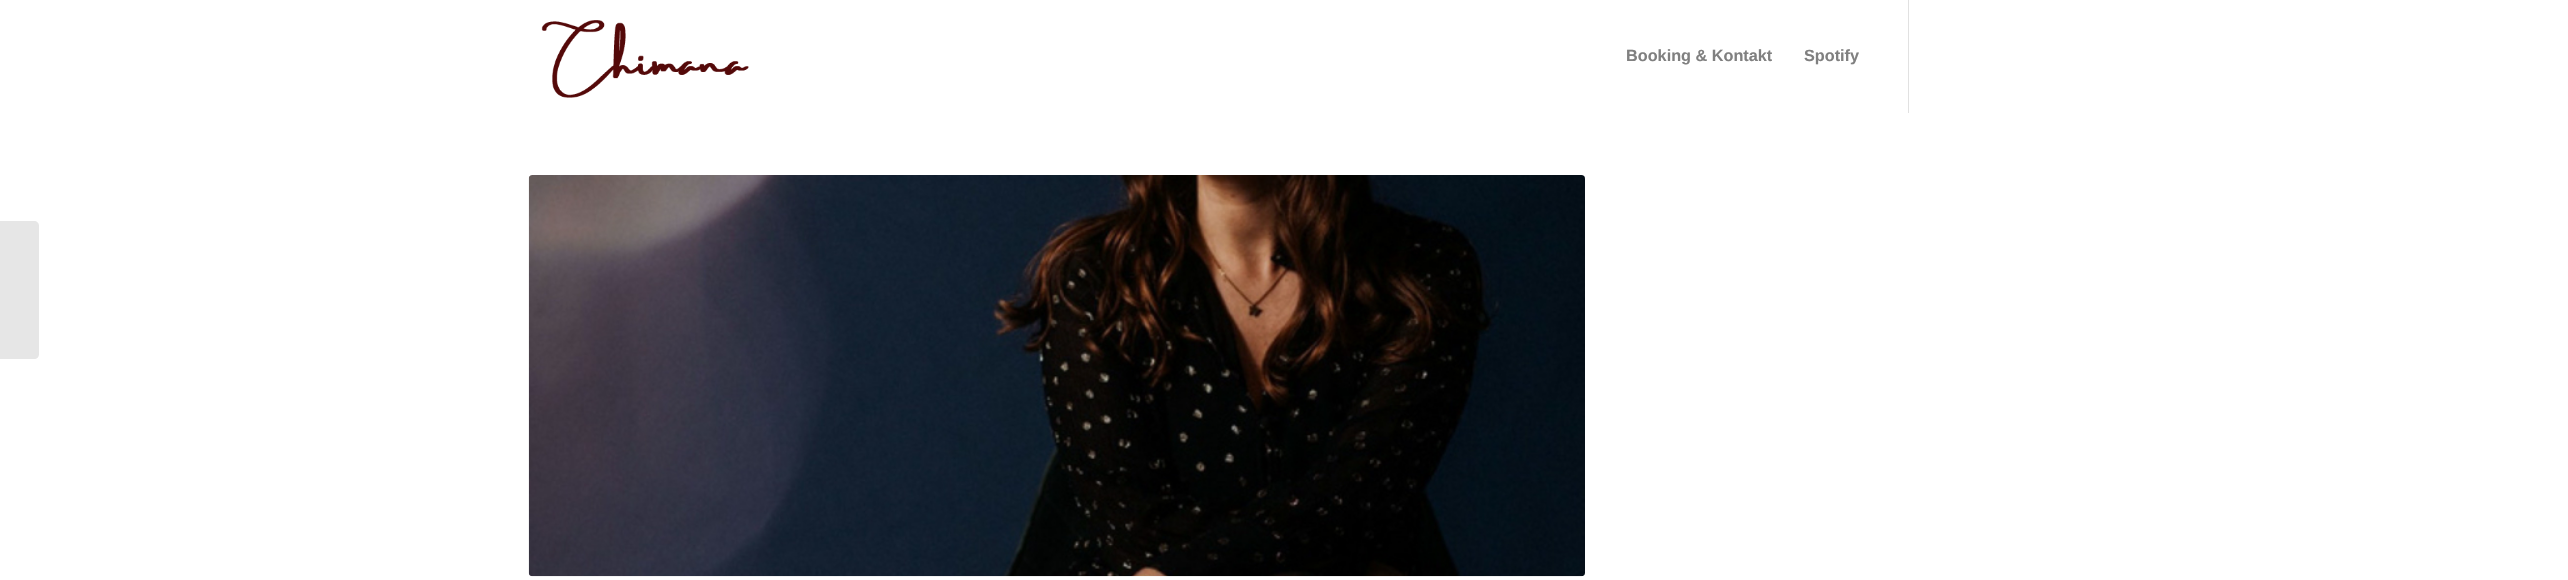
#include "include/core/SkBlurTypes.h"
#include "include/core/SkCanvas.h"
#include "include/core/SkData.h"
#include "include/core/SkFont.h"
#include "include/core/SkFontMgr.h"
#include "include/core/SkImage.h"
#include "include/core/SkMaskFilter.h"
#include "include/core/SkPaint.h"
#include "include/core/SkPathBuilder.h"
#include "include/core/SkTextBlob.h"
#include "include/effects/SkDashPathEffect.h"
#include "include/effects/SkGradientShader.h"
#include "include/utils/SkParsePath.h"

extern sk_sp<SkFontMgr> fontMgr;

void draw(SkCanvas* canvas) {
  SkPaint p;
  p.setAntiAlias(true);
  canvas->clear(SK_ColorWHITE);
  canvas->drawImageRect(SkImages::DeferredFromEncodedData(SkData::MakeFromFileName("images/1.png")), SkRect::MakeLTRB(541, 20, 749, 98), SkSamplingOptions());
  p.setColor(SkColorSetRGB(225, 225, 225));
  canvas->drawRect(SkRect::MakeLTRB(1908, 0, 1909, 113), p);
  p.setColor(SkColorSetRGB(230, 230, 230));
  canvas->drawPath(SkPathBuilder().moveTo(0, 221).lineTo(34, 221).cubicTo(37, 221, 39, 223, 39, 226).lineTo(39, 354).cubicTo(39, 357, 37, 359, 34, 359).lineTo(0, 359).close().detach(), p);
  canvas->drawImageRect(SkImages::DeferredFromEncodedData(SkData::MakeFromFileName("images/2.png")), SkRect::MakeLTRB(528, 175, 1585, 577), SkSamplingOptions());
  SkFont font1(fontMgr->matchFamilyStyle("Liberation Sans", SkFontStyle::Bold()), 16.25f);
  font1.setSubpixel(true);
  p.setColor(SkColorSetRGB(128, 128, 128));
  canvas->drawString("Booking & Kontakt", 1626, 61, font1, p);
  canvas->drawString("Spotify", 1804, 61, font1, p);
}
